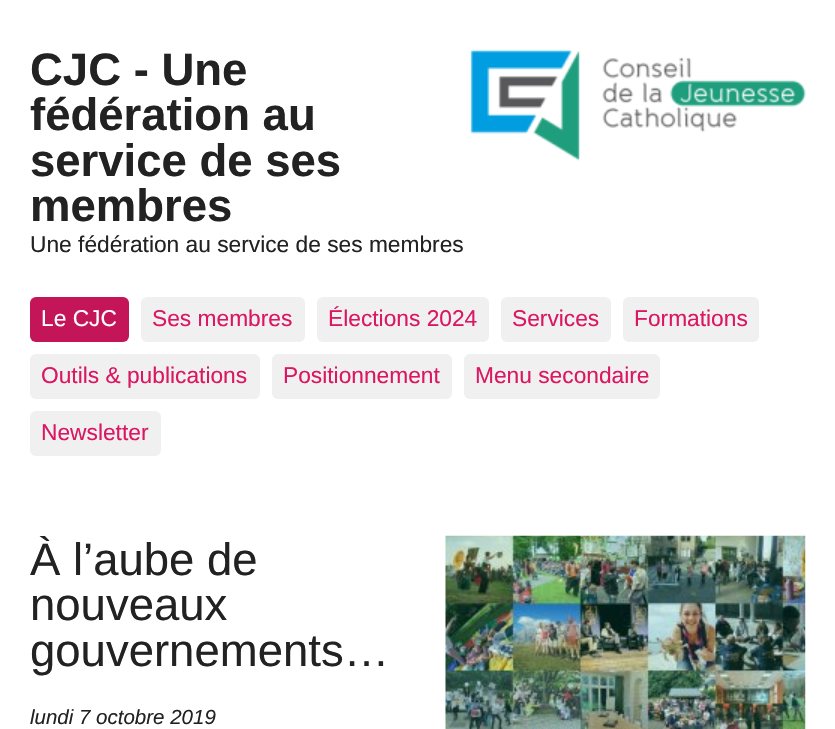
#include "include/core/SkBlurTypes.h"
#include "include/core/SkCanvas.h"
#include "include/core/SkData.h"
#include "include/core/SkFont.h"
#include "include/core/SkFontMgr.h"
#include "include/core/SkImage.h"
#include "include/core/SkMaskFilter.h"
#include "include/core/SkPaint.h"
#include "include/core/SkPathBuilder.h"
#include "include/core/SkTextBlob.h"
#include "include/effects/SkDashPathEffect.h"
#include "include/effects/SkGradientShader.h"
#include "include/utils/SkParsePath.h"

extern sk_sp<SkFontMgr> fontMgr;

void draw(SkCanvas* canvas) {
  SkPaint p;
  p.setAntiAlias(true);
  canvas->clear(SK_ColorWHITE);
  canvas->drawImageRect(SkImages::DeferredFromEncodedData(SkData::MakeFromFileName("images/1.png")), SkRect::MakeLTRB(470, 49, 806, 161), SkSamplingOptions());
  p.setColor(SkColorSetRGB(196, 21, 88));
  canvas->drawRoundRect(SkRect::MakeLTRB(30, 297, 129, 342), 6, 6, p);
  p.setColor(SkColorSetRGB(240, 240, 240));
  canvas->drawRoundRect(SkRect::MakeLTRB(141, 297, 305, 342), 6, 6, p);
  canvas->drawRoundRect(SkRect::MakeLTRB(317, 297, 489, 342), 6, 6, p);
  canvas->drawRoundRect(SkRect::MakeLTRB(501, 297, 611, 342), 6, 6, p);
  canvas->drawRoundRect(SkRect::MakeLTRB(623, 297, 759, 342), 6, 6, p);
  canvas->drawRoundRect(SkRect::MakeLTRB(30, 354, 260, 399), 6, 6, p);
  canvas->drawRoundRect(SkRect::MakeLTRB(272, 354, 452, 399), 6, 6, p);
  canvas->drawRoundRect(SkRect::MakeLTRB(464, 354, 660, 399), 6, 6, p);
  canvas->drawRoundRect(SkRect::MakeLTRB(30, 411, 161, 456), 6, 6, p);
  canvas->drawImageRect(SkImages::DeferredFromEncodedData(SkData::MakeFromFileName("images/2.png")), SkRect::MakeLTRB(445, 535, 806, 729), SkSamplingOptions());
  SkFont font1(fontMgr->matchFamilyStyle("Liberation Sans", SkFontStyle::Bold()), 45.5f);
  font1.setSubpixel(true);
  p.setColor(SkColorSetRGB(34, 34, 34));
  canvas->drawString("CJC - Une", 30, 85, font1, p);
  canvas->drawString("fédération au", 30, 130, font1, p);
  canvas->drawString("service de ses", 30, 176, font1, p);
  canvas->drawString("membres", 30, 221, font1, p);
  SkFont font2(fontMgr->matchFamilyStyle("Liberation Sans", SkFontStyle::Normal()), 22.75f);
  font2.setSubpixel(true);
  canvas->drawString("Une fédération au service de ses membres", 30, 252, font2, p);
  p.setColor(SK_ColorWHITE);
  canvas->drawString("Le CJC", 41, 326, font2, p);
  p.setColor(SkColorSetRGB(219, 23, 98));
  canvas->drawString("Ses membres", 152, 326, font2, p);
  canvas->drawString("Élections 2024", 328, 326, font2, p);
  canvas->drawString("Services", 512, 326, font2, p);
  canvas->drawString("Formations", 634, 326, font2, p);
  canvas->drawString("Outils & publications", 41, 383, font2, p);
  canvas->drawString("Positionnement", 283, 383, font2, p);
  canvas->drawString("Menu secondaire", 475, 383, font2, p);
  canvas->drawString("Newsletter", 41, 440, font2, p);
  canvas->save();
  canvas->clipRect(SkRect::MakeLTRB(30, 536, 806, 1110));
  SkFont font3(fontMgr->matchFamilyStyle("Liberation Sans", SkFontStyle::Normal()), 45.5f);
  font3.setSubpixel(true);
  p.setColor(SkColorSetRGB(34, 34, 34));
  canvas->drawString("À l’aube de", 30, 575, font3, p);
  canvas->restore();
  canvas->drawString("nouveaux", 30, 620, font3, p);
  canvas->drawString("gouvernements…", 30, 666, font3, p);
  SkFont font4(fontMgr->matchFamilyStyle("Liberation Sans", SkFontStyle::Italic()), 20.5f);
  font4.setSubpixel(true);
  canvas->drawString("lundi 7 octobre 2019", 30, 724, font4, p);
}
